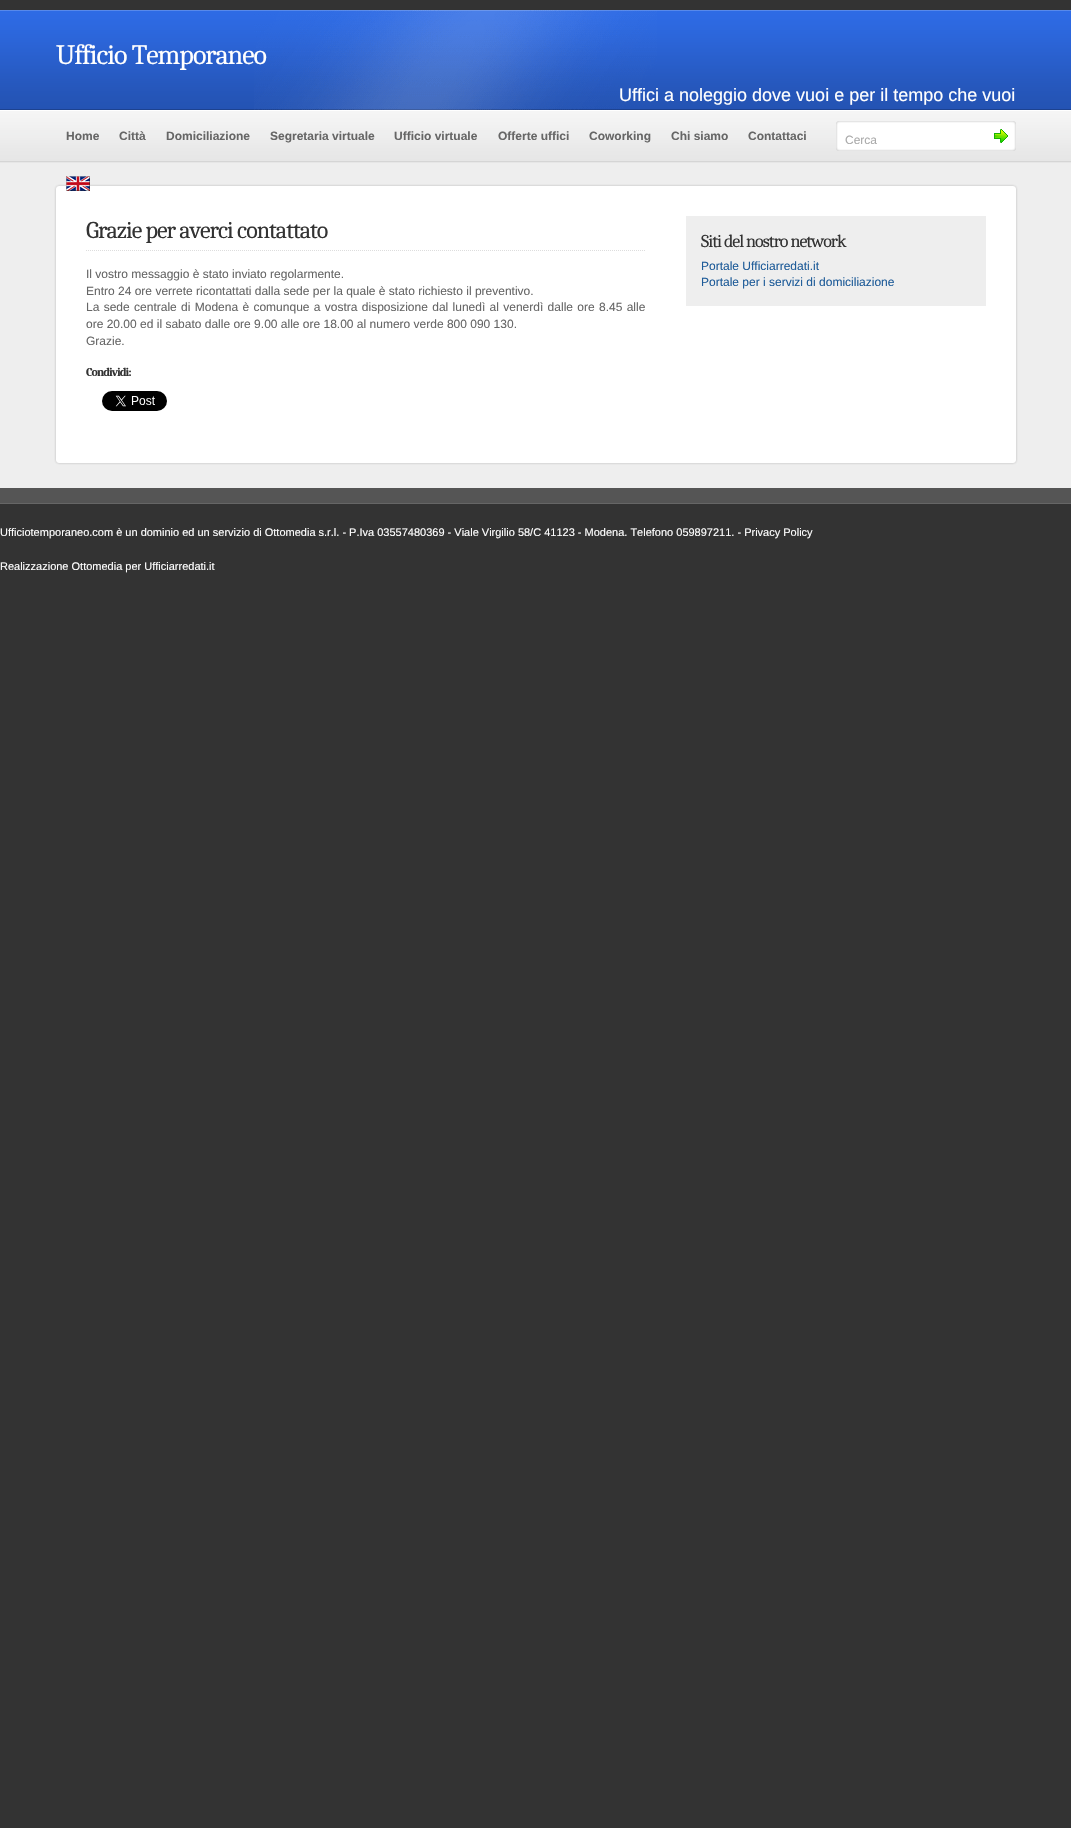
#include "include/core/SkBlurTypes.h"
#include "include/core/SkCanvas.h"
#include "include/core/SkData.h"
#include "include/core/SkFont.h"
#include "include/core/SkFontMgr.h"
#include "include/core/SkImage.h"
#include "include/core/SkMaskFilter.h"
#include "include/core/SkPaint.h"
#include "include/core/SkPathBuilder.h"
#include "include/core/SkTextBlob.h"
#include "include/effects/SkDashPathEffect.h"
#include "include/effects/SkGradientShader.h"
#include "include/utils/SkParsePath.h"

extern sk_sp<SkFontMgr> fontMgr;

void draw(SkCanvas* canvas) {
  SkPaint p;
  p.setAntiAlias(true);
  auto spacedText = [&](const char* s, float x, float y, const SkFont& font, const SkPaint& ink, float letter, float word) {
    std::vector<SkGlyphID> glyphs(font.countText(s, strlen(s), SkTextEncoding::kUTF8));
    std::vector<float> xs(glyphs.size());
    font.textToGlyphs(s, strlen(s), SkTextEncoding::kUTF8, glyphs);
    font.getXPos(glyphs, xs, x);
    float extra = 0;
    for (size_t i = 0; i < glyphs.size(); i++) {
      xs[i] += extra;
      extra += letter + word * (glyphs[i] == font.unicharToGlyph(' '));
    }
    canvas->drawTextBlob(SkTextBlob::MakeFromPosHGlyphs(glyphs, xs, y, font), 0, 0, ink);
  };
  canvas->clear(SkColorSetRGB(51, 51, 51));
  p.setColor(SkColorSetRGB(238, 238, 238));
  canvas->drawRect(SkRect::MakeLTRB(0, 163, 1071, 488), p);
  canvas->drawImageRect(SkImages::DeferredFromEncodedData(SkData::MakeFromFileName("images/1.png")), SkRect::MakeLTRB(0, 0, 1071, 110), SkSamplingOptions());
  p.setColor(SK_ColorWHITE);
  canvas->drawRect(SkRect::MakeLTRB(0, 110, 1071, 111), p);
  canvas->drawImageRect(SkImages::DeferredFromEncodedData(SkData::MakeFromFileName("images/2.png")), SkRect::MakeLTRB(254, 10, 657, 110), SkSamplingOptions());
  canvas->drawImageRect(SkImages::DeferredFromEncodedData(SkData::MakeFromFileName("images/3.png")), SkRect::MakeLTRB(0, 111, 1071, 163), SkSamplingOptions());
  canvas->drawImageRect(SkImages::DeferredFromEncodedData(SkData::MakeFromFileName("images/6.png")), SkRect::MakeLTRB(54, 184, 1018, 216), SkSamplingOptions());
  canvas->drawImageRect(SkImages::DeferredFromEncodedData(SkData::MakeFromFileName("images/4.png")), SkRect::MakeLTRB(66, 176, 90, 191), SkSamplingOptions());
  canvas->drawImageRect(SkImages::DeferredFromEncodedData(SkData::MakeFromFileName("images/5.png")), SkRect::MakeLTRB(836, 121, 1016, 151), SkSamplingOptions());
  canvas->drawImageRect(SkImages::DeferredFromEncodedData(SkData::MakeFromFileName("images/7.png")), SkRect::MakeLTRB(54, 216, 1018, 433), SkSamplingOptions());
  p.setStyle(SkPaint::kStroke_Style);
  p.setStrokeWidth(1);
  p.setColor(SkColorSetRGB(221, 221, 221));
  p.setPathEffect(SkDashPathEffect::Make({{1, 1}}, 0));
  canvas->drawPath(SkPathBuilder().moveTo(86, 250.5f).lineTo(646, 250.5f).detach(), p);
  p.setPathEffect(nullptr);
  canvas->drawImageRect(SkImages::DeferredFromEncodedData(SkData::MakeFromFileName("images/8.png")), SkRect::MakeLTRB(102, 391, 167, 411), SkSamplingOptions());
  p.setStyle(SkPaint::kFill_Style);
  p.setColor(SkColorSetRGB(238, 238, 238));
  canvas->drawRect(SkRect::MakeLTRB(686, 216, 986, 306), p);
  canvas->drawImageRect(SkImages::DeferredFromEncodedData(SkData::MakeFromFileName("images/9.png")), SkRect::MakeLTRB(54, 433, 1018, 465), SkSamplingOptions());
  p.setColor(SkColorSetRGB(85, 85, 85));
  canvas->drawRect(SkRect::MakeLTRB(0, 488, 1071, 503), p);
  p.setColor(SkColorSetRGB(102, 102, 102));
  canvas->drawRect(SkRect::MakeLTRB(0, 503, 1071, 504), p);
  SkFont font1(fontMgr->matchFamilyStyle("Caladea", SkFontStyle::Normal()), 28);
  font1.setSubpixel(true);
  p.setColor(SK_ColorWHITE);
  spacedText("Ufficio Temporaneo", 56, 64, font1, p, -1, 0);
  SkFont font2(fontMgr->matchFamilyStyle("Liberation Sans", SkFontStyle::Normal()), 18);
  font2.setSubpixel(true);
  canvas->drawString("Uffici a noleggio dove vuoi e per il tempo che vuoi", 619, 101, font2, p);
  SkFont font3(fontMgr->matchFamilyStyle("Liberation Sans", SkFontStyle::Bold()), 12);
  font3.setSubpixel(true);
  p.setColor(SkColorSetRGB(102, 102, 102));
  canvas->drawString("Home", 66, 140, font3, p);
  canvas->drawString("Città", 119, 140, font3, p);
  canvas->drawString("Domiciliazione", 166, 140, font3, p);
  canvas->drawString("Segretaria virtuale", 270, 140, font3, p);
  canvas->drawString("Ufficio virtuale", 394, 140, font3, p);
  canvas->drawString("Offerte uffici", 498, 140, font3, p);
  canvas->drawString("Coworking", 589, 140, font3, p);
  canvas->drawString("Chi siamo", 671, 140, font3, p);
  canvas->drawString("Contattaci", 748, 140, font3, p);
  SkFont font4(fontMgr->matchFamilyStyle("Liberation Sans", SkFontStyle::Normal()), 12);
  font4.setSubpixel(true);
  p.setColor(SkColorSetRGB(170, 170, 170));
  canvas->drawString("Cerca", 845, 144, font4, p);
  SkFont font5(fontMgr->matchFamilyStyle("Caladea", SkFontStyle::Normal()), 24);
  font5.setSubpixel(true);
  p.setColor(SkColorSetRGB(51, 51, 51));
  spacedText("Grazie per averci contattato", 86, 238, font5, p, -1, 0);
  p.setColor(SkColorSetRGB(102, 102, 102));
  canvas->drawString("Il vostro messaggio è stato inviato regolarmente.", 86, 278, font4, p);
  canvas->drawString("Entro 24 ore verrete ricontattati dalla sede per la quale è stato richiesto il preventivo.", 86, 295, font4, p);
  spacedText("La sede centrale di Modena è comunque a vostra disposizione dal lunedì al venerdì dalle ore 8.45 alle", 86, 311, font4, p, 0, 1);
  canvas->drawString("ore 20.00 ed il sabato dalle ore 9.00 alle ore 18.00 al numero verde 800 090 130.", 86, 328, font4, p);
  canvas->drawString("Grazie.", 86, 345, font4, p);
  SkFont font6(fontMgr->matchFamilyStyle("Caladea", SkFontStyle::Bold()), 12);
  font6.setSubpixel(true);
  p.setColor(SkColorSetRGB(51, 51, 51));
  spacedText("Condividi:", 86, 376, font6, p, -1, 0);
  SkFont font7(fontMgr->matchFamilyStyle("Caladea", SkFontStyle::Normal()), 18);
  font7.setSubpixel(true);
  spacedText("Siti del nostro network", 701, 247, font7, p, -1, 0);
  p.setColor(SkColorSetRGB(31, 92, 153));
  canvas->drawString("Portale Ufficiarredati.it", 701, 270, font4, p);
  canvas->drawString("Portale per i servizi di domiciliazione", 701, 286, font4, p);
  SkFont font8(fontMgr->matchFamilyStyle("Liberation Sans", SkFontStyle::Normal()), 11);
  font8.setSubpixel(true);
  p.setColor(SK_ColorWHITE);
  canvas->drawString("Ufficiotemporaneo.com è un dominio ed un servizio di Ottomedia s.r.l. - P.Iva 03557480369 - Viale Virgilio 58/C 41123 - Modena. Telefono 059897211. - Privacy Policy", 0, 536, font8, p);
  canvas->drawString("Realizzazione Ottomedia per Ufficiarredati.it", 0, 570, font8, p);
}
